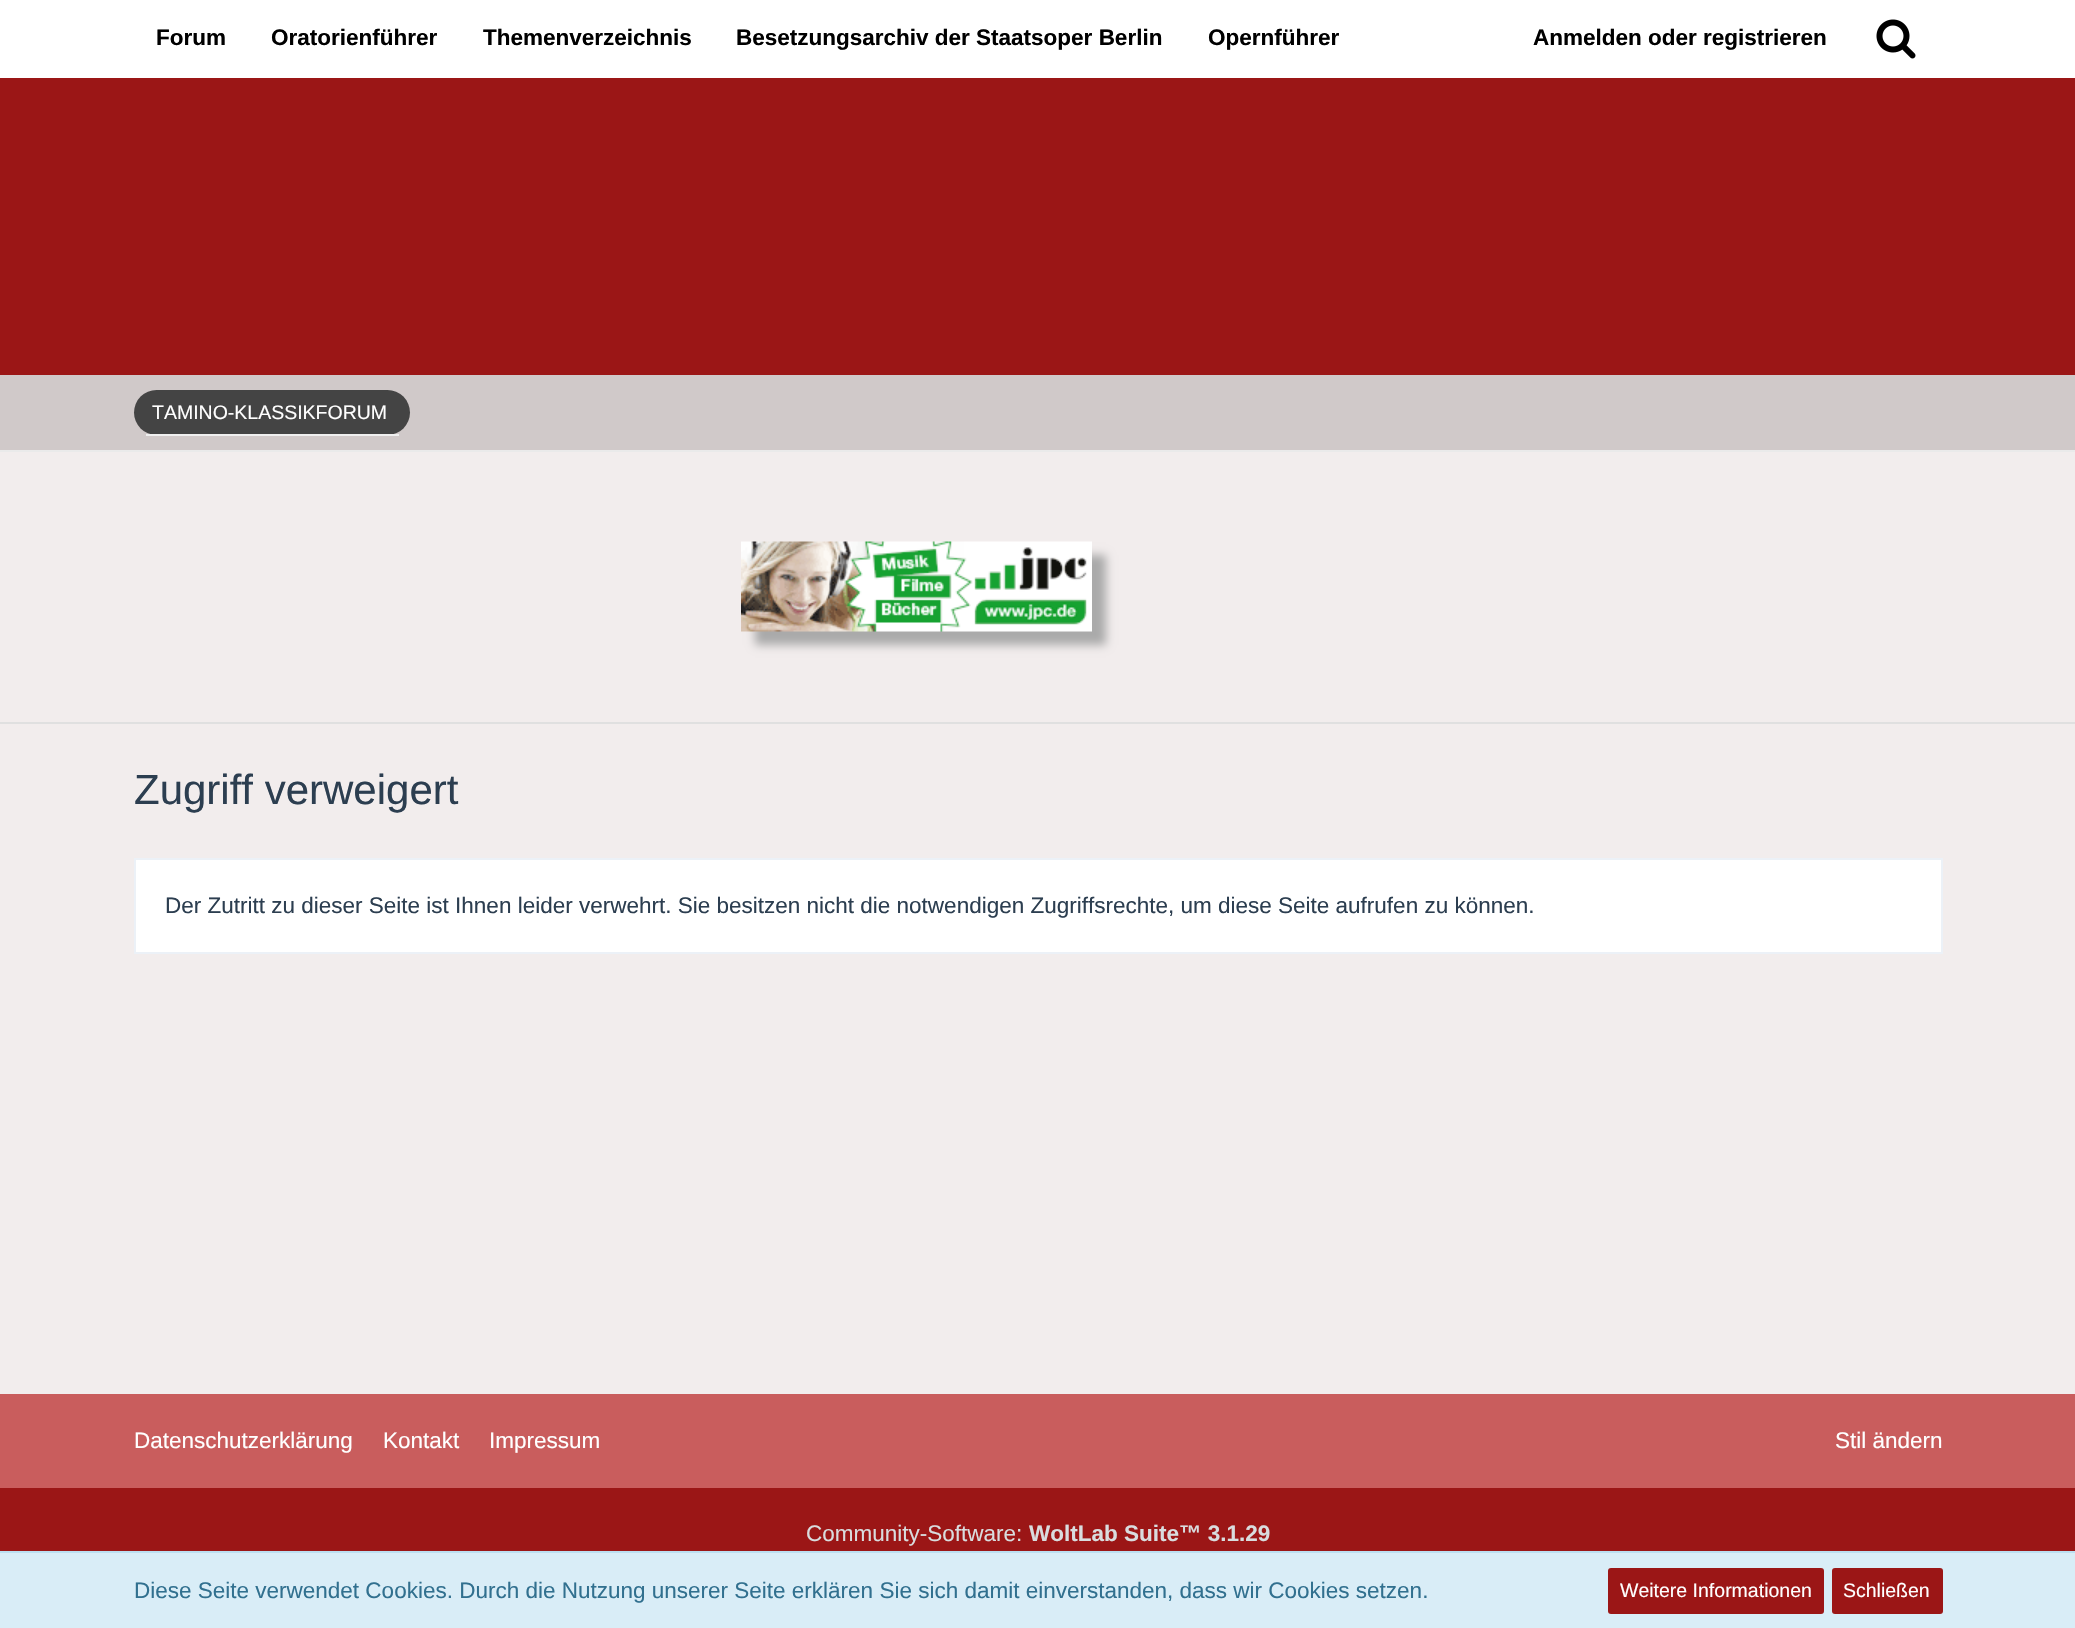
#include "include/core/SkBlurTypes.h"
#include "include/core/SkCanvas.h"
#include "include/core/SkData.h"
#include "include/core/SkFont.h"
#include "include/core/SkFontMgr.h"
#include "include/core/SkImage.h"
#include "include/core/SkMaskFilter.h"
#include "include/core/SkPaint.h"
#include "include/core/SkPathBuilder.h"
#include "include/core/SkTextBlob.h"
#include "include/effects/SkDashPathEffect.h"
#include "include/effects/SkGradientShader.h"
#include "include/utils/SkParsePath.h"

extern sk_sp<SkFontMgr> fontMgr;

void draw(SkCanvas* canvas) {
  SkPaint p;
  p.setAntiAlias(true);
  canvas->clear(SkColorSetRGB(242, 237, 237));
  p.setColor(SkColorSetRGB(155, 22, 22));
  canvas->drawRect(SkRect::MakeLTRB(0, 78, 2075, 375), p);
  p.setColor(SK_ColorWHITE);
  canvas->drawRect(SkRect::MakeLTRB(0, 0, 2075, 78), p);
  canvas->drawImageRect(SkImages::DeferredFromEncodedData(SkData::MakeFromFileName("images/1.png")), SkRect::MakeLTRB(1876, 19, 1916, 59), SkSamplingOptions());
  p.setColor(SkColorSetRGB(208, 201, 201));
  canvas->drawRect(SkRect::MakeLTRB(0, 375, 2075, 450), p);
  p.setColor(SkColorSetRGB(234, 234, 234));
  canvas->drawRect(SkRect::MakeLTRB(0, 450, 2075, 452), p);
  p.setColor(SkColorSetRGB(68, 68, 68));
  canvas->drawRoundRect(SkRect::MakeLTRB(134, 390, 410, 435), 22.5f, 22.5f, p);
  p.setColor(SkColorSetRGB(239, 239, 239));
  canvas->drawRect(SkRect::MakeLTRB(146, 434, 399, 436), p);
  p.setColor(SkColorSetRGB(224, 224, 224));
  canvas->drawRect(SkRect::MakeLTRB(0, 722, 2075, 724), p);
  p.setColor(SkColorSetRGB(170, 170, 170));
  p.setMaskFilter(SkMaskFilter::MakeBlur(kNormal_SkBlurStyle, 4.5f));
  canvas->drawRect(SkRect::MakeLTRB(755, 555, 1106, 645), p);
  p.setMaskFilter(nullptr);
  canvas->drawImageRect(SkImages::DeferredFromEncodedData(SkData::MakeFromFileName("images/2.png")), SkRect::MakeLTRB(741, 541, 1092, 632), SkSamplingOptions());
  p.setColor(SK_ColorWHITE);
  canvas->drawRect(SkRect::MakeLTRB(135, 859, 1942, 953), p);
  p.setStyle(SkPaint::kStroke_Style);
  p.setStrokeWidth(2);
  p.setColor(SkColorSetRGB(236, 241, 247));
  canvas->drawRect(SkRect::MakeLTRB(135, 859, 1942, 953), p);
  p.setStyle(SkPaint::kFill_Style);
  p.setColor(SkColorSetRGB(201, 93, 93));
  canvas->drawRect(SkRect::MakeLTRB(0, 1394, 2075, 1488), p);
  p.setColor(SkColorSetRGB(155, 22, 22));
  canvas->drawRect(SkRect::MakeLTRB(0, 1488, 2075, 1551), p);
  p.setColor(SkColorSetRGB(217, 237, 247));
  canvas->drawRect(SkRect::MakeLTRB(0, 1553, 2075, 1628), p);
  p.setColor(SkColorSetRGB(188, 223, 241));
  canvas->drawRect(SkRect::MakeLTRB(0, 1551, 2075, 1553), p);
  p.setColor(SkColorSetRGB(155, 22, 22));
  canvas->drawRoundRect(SkRect::MakeLTRB(1608, 1568, 1824, 1614), 3, 3, p);
  canvas->drawRoundRect(SkRect::MakeLTRB(1832, 1568, 1943, 1614), 3, 3, p);
  SkFont font1(fontMgr->matchFamilyStyle("Liberation Sans", SkFontStyle::Bold()), 22.5f);
  font1.setSubpixel(true);
  p.setColor(SK_ColorBLACK);
  canvas->drawString("Forum", 156, 45, font1, p);
  canvas->drawString("Oratorienführer", 271, 45, font1, p);
  canvas->drawString("Themenverzeichnis", 483, 45, font1, p);
  canvas->drawString("Besetzungsarchiv der Staatsoper Berlin", 736, 45, font1, p);
  canvas->drawString("Opernführer", 1208, 45, font1, p);
  canvas->drawString("Anmelden oder registrieren", 1533, 45, font1, p);
  SkFont font2(fontMgr->matchFamilyStyle("Liberation Sans", SkFontStyle::Normal()), 19.5f);
  font2.setSubpixel(true);
  p.setColor(SK_ColorWHITE);
  canvas->drawString("TAMINO-KLASSIKFORUM", 152, 419, font2, p);
  SkFont font3(fontMgr->matchFamilyStyle("Liberation Sans", SkFontStyle::Normal()), 42);
  font3.setSubpixel(true);
  p.setColor(SkColorSetRGB(44, 62, 80));
  canvas->drawString("Zugriff verweigert", 134, 804, font3, p);
  SkFont font4(fontMgr->matchFamilyStyle("Liberation Sans", SkFontStyle::Normal()), 22.5f);
  font4.setSubpixel(true);
  canvas->drawString("Der Zutritt zu dieser Seite ist Ihnen leider verwehrt. Sie besitzen nicht die notwendigen Zugriffsrechte, um diese Seite aufrufen zu können.", 165, 913, font4, p);
  p.setColor(SK_ColorWHITE);
  canvas->drawString("Datenschutzerklärung", 134, 1448, font4, p);
  canvas->drawString("Kontakt", 383, 1448, font4, p);
  canvas->drawString("Impressum", 489, 1448, font4, p);
  canvas->drawString("Stil ändern", 1835, 1448, font4, p);
  p.setColor(SkColorSetRGB(217, 220, 222));
  canvas->drawString("Community-Software:", 806, 1541, font4, p);
  canvas->drawString("WoltLab Suite™ 3.1.29", 1029, 1541, font1, p);
  p.setColor(SkColorSetRGB(49, 112, 143));
  canvas->drawString("Diese Seite verwendet Cookies. Durch die Nutzung unserer Seite erklären Sie sich damit einverstanden, dass wir Cookies setzen.", 134, 1598, font4, p);
  p.setColor(SK_ColorWHITE);
  canvas->drawString("Weitere Informationen", 1620, 1597, font2, p);
  canvas->drawString("Schließen", 1843, 1597, font2, p);
}
